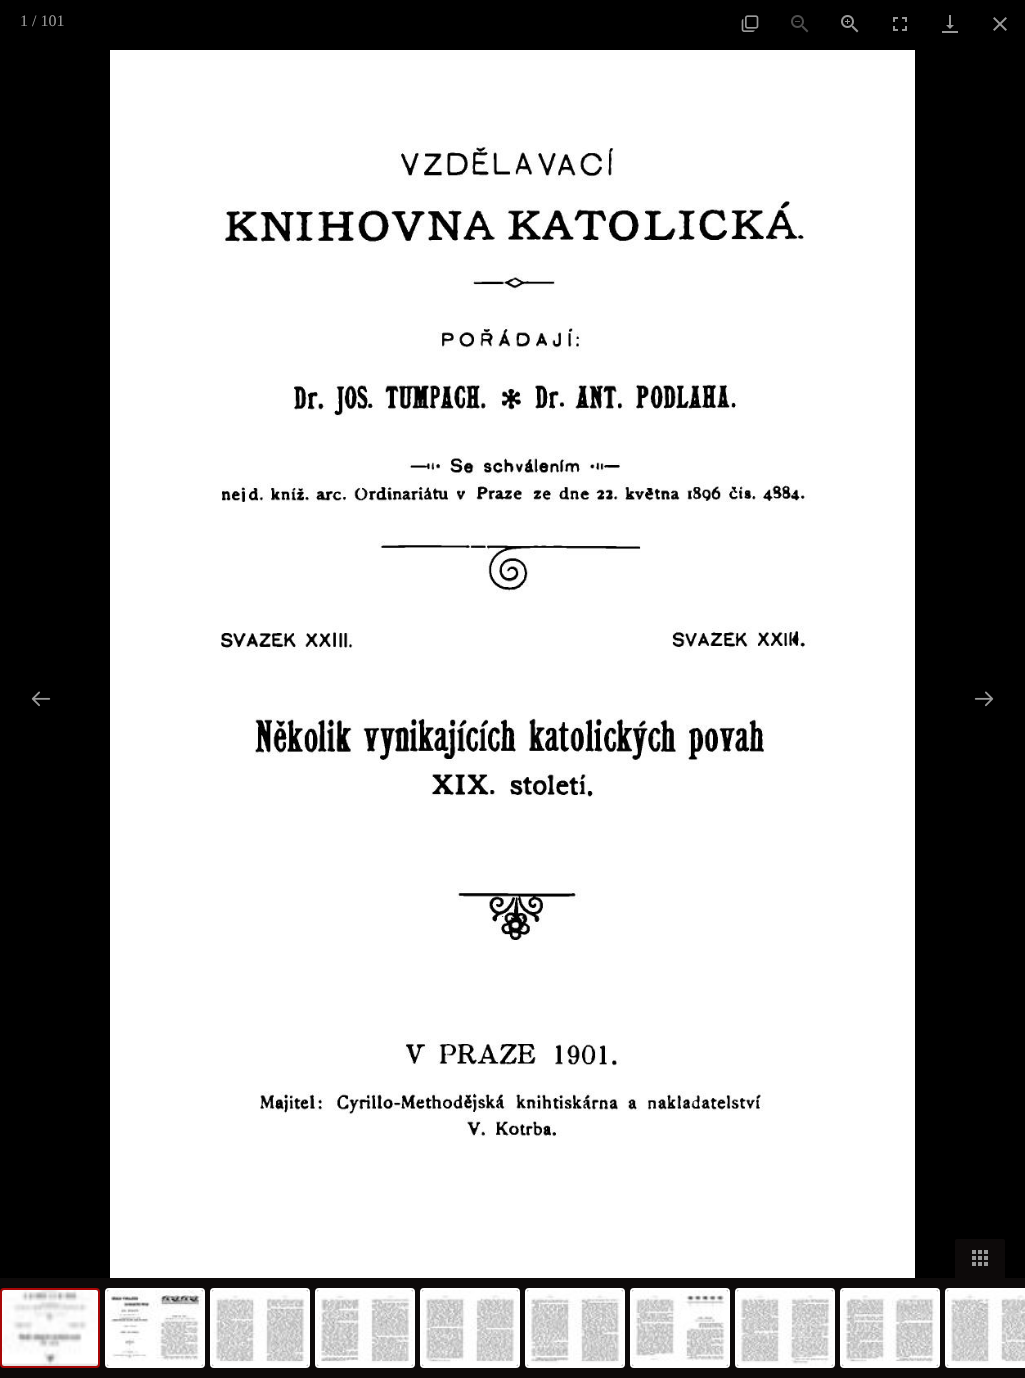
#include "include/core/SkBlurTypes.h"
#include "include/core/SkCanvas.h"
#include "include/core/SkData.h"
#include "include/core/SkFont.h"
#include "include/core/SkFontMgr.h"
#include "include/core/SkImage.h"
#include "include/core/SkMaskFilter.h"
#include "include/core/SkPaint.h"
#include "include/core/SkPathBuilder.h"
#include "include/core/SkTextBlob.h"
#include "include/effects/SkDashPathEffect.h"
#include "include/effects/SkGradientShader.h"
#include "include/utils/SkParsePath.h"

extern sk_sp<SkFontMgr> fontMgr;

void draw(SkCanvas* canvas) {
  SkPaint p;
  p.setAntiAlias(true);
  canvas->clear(SK_ColorBLACK);
  canvas->drawImageRect(SkImages::DeferredFromEncodedData(SkData::MakeFromFileName("images/1.png")), SkRect::MakeLTRB(741, 15, 759, 32), SkSamplingOptions());
  canvas->drawImageRect(SkImages::DeferredFromEncodedData(SkData::MakeFromFileName("images/2.png")), SkRect::MakeLTRB(791, 15, 809, 33), SkSamplingOptions());
  canvas->drawImageRect(SkImages::DeferredFromEncodedData(SkData::MakeFromFileName("images/3.png")), SkRect::MakeLTRB(841, 15, 859, 33), SkSamplingOptions());
  canvas->drawImageRect(SkImages::DeferredFromEncodedData(SkData::MakeFromFileName("images/4.png")), SkRect::MakeLTRB(893, 17, 907, 31), SkSamplingOptions());
  canvas->drawImageRect(SkImages::DeferredFromEncodedData(SkData::MakeFromFileName("images/5.png")), SkRect::MakeLTRB(942, 15, 958, 33), SkSamplingOptions());
  canvas->drawImageRect(SkImages::DeferredFromEncodedData(SkData::MakeFromFileName("images/6.png")), SkRect::MakeLTRB(993, 17, 1007, 31), SkSamplingOptions());
  canvas->drawImageRect(SkImages::DeferredFromEncodedData(SkData::MakeFromFileName("images/7.png")), SkRect::MakeLTRB(110, 50, 915, 1278), SkSamplingOptions());
  canvas->drawImageRect(SkImages::DeferredFromEncodedData(SkData::MakeFromFileName("images/8.png")), SkRect::MakeLTRB(31, 691, 51, 707), SkSamplingOptions());
  canvas->drawImageRect(SkImages::DeferredFromEncodedData(SkData::MakeFromFileName("images/9.png")), SkRect::MakeLTRB(974, 691, 994, 707), SkSamplingOptions());
  p.setColor(SkColorSetRGB(13, 10, 10));
  canvas->drawRect(SkRect::MakeLTRB(0, 1278, 1025, 1378), p);
  canvas->drawPath(SkPathBuilder().moveTo(957, 1239).lineTo(1003, 1239).cubicTo(1004, 1239, 1005, 1240, 1005, 1241).lineTo(1005, 1278).lineTo(955, 1278).lineTo(955, 1241).cubicTo(955, 1240, 956, 1239, 957, 1239).close().detach(), p);
  canvas->drawImageRect(SkImages::DeferredFromEncodedData(SkData::MakeFromFileName("images/10.png")), SkRect::MakeLTRB(972, 1250, 988, 1266), SkSamplingOptions());
  p.setStyle(SkPaint::kStroke_Style);
  p.setStrokeWidth(2);
  p.setColor(SkColorSetRGB(169, 7, 7));
  canvas->drawRoundRect(SkRect::MakeLTRB(1, 1289, 99, 1367), 3, 3, p);
  canvas->drawImageRect(SkImages::DeferredFromEncodedData(SkData::MakeFromFileName("images/11.png")), SkRect::MakeLTRB(2, 1290, 98, 1366), SkSamplingOptions());
  p.setColor(SK_ColorWHITE);
  canvas->drawRoundRect(SkRect::MakeLTRB(106, 1289, 204, 1367), 3, 3, p);
  canvas->drawImageRect(SkImages::DeferredFromEncodedData(SkData::MakeFromFileName("images/12.png")), SkRect::MakeLTRB(107, 1290, 203, 1366), SkSamplingOptions());
  canvas->drawRoundRect(SkRect::MakeLTRB(211, 1289, 309, 1367), 3, 3, p);
  canvas->drawImageRect(SkImages::DeferredFromEncodedData(SkData::MakeFromFileName("images/13.png")), SkRect::MakeLTRB(212, 1290, 308, 1366), SkSamplingOptions());
  canvas->drawRoundRect(SkRect::MakeLTRB(316, 1289, 414, 1367), 3, 3, p);
  canvas->drawImageRect(SkImages::DeferredFromEncodedData(SkData::MakeFromFileName("images/14.png")), SkRect::MakeLTRB(317, 1290, 413, 1366), SkSamplingOptions());
  canvas->drawRoundRect(SkRect::MakeLTRB(421, 1289, 519, 1367), 3, 3, p);
  canvas->drawImageRect(SkImages::DeferredFromEncodedData(SkData::MakeFromFileName("images/15.png")), SkRect::MakeLTRB(422, 1290, 518, 1366), SkSamplingOptions());
  canvas->drawRoundRect(SkRect::MakeLTRB(526, 1289, 624, 1367), 3, 3, p);
  canvas->drawImageRect(SkImages::DeferredFromEncodedData(SkData::MakeFromFileName("images/16.png")), SkRect::MakeLTRB(527, 1290, 623, 1366), SkSamplingOptions());
  canvas->drawRoundRect(SkRect::MakeLTRB(631, 1289, 729, 1367), 3, 3, p);
  canvas->drawImageRect(SkImages::DeferredFromEncodedData(SkData::MakeFromFileName("images/17.png")), SkRect::MakeLTRB(632, 1290, 728, 1366), SkSamplingOptions());
  canvas->drawRoundRect(SkRect::MakeLTRB(736, 1289, 834, 1367), 3, 3, p);
  canvas->drawImageRect(SkImages::DeferredFromEncodedData(SkData::MakeFromFileName("images/18.png")), SkRect::MakeLTRB(737, 1290, 833, 1366), SkSamplingOptions());
  canvas->drawRoundRect(SkRect::MakeLTRB(841, 1289, 939, 1367), 3, 3, p);
  canvas->drawImageRect(SkImages::DeferredFromEncodedData(SkData::MakeFromFileName("images/19.png")), SkRect::MakeLTRB(842, 1290, 938, 1366), SkSamplingOptions());
  canvas->drawRoundRect(SkRect::MakeLTRB(946, 1289, 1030, 1367), 3, 3, p);
  canvas->drawImageRect(SkImages::DeferredFromEncodedData(SkData::MakeFromFileName("images/20.png")), SkRect::MakeLTRB(947, 1290, 1025, 1366), SkSamplingOptions());
  SkFont font1(fontMgr->matchFamilyStyle("Liberation Serif", SkFontStyle::Normal()), 16);
  font1.setSubpixel(true);
  p.setStyle(SkPaint::kFill_Style);
  p.setColor(SkColorSetRGB(153, 153, 153));
  canvas->drawString("1 / 101", 20, 26, font1, p);
}
